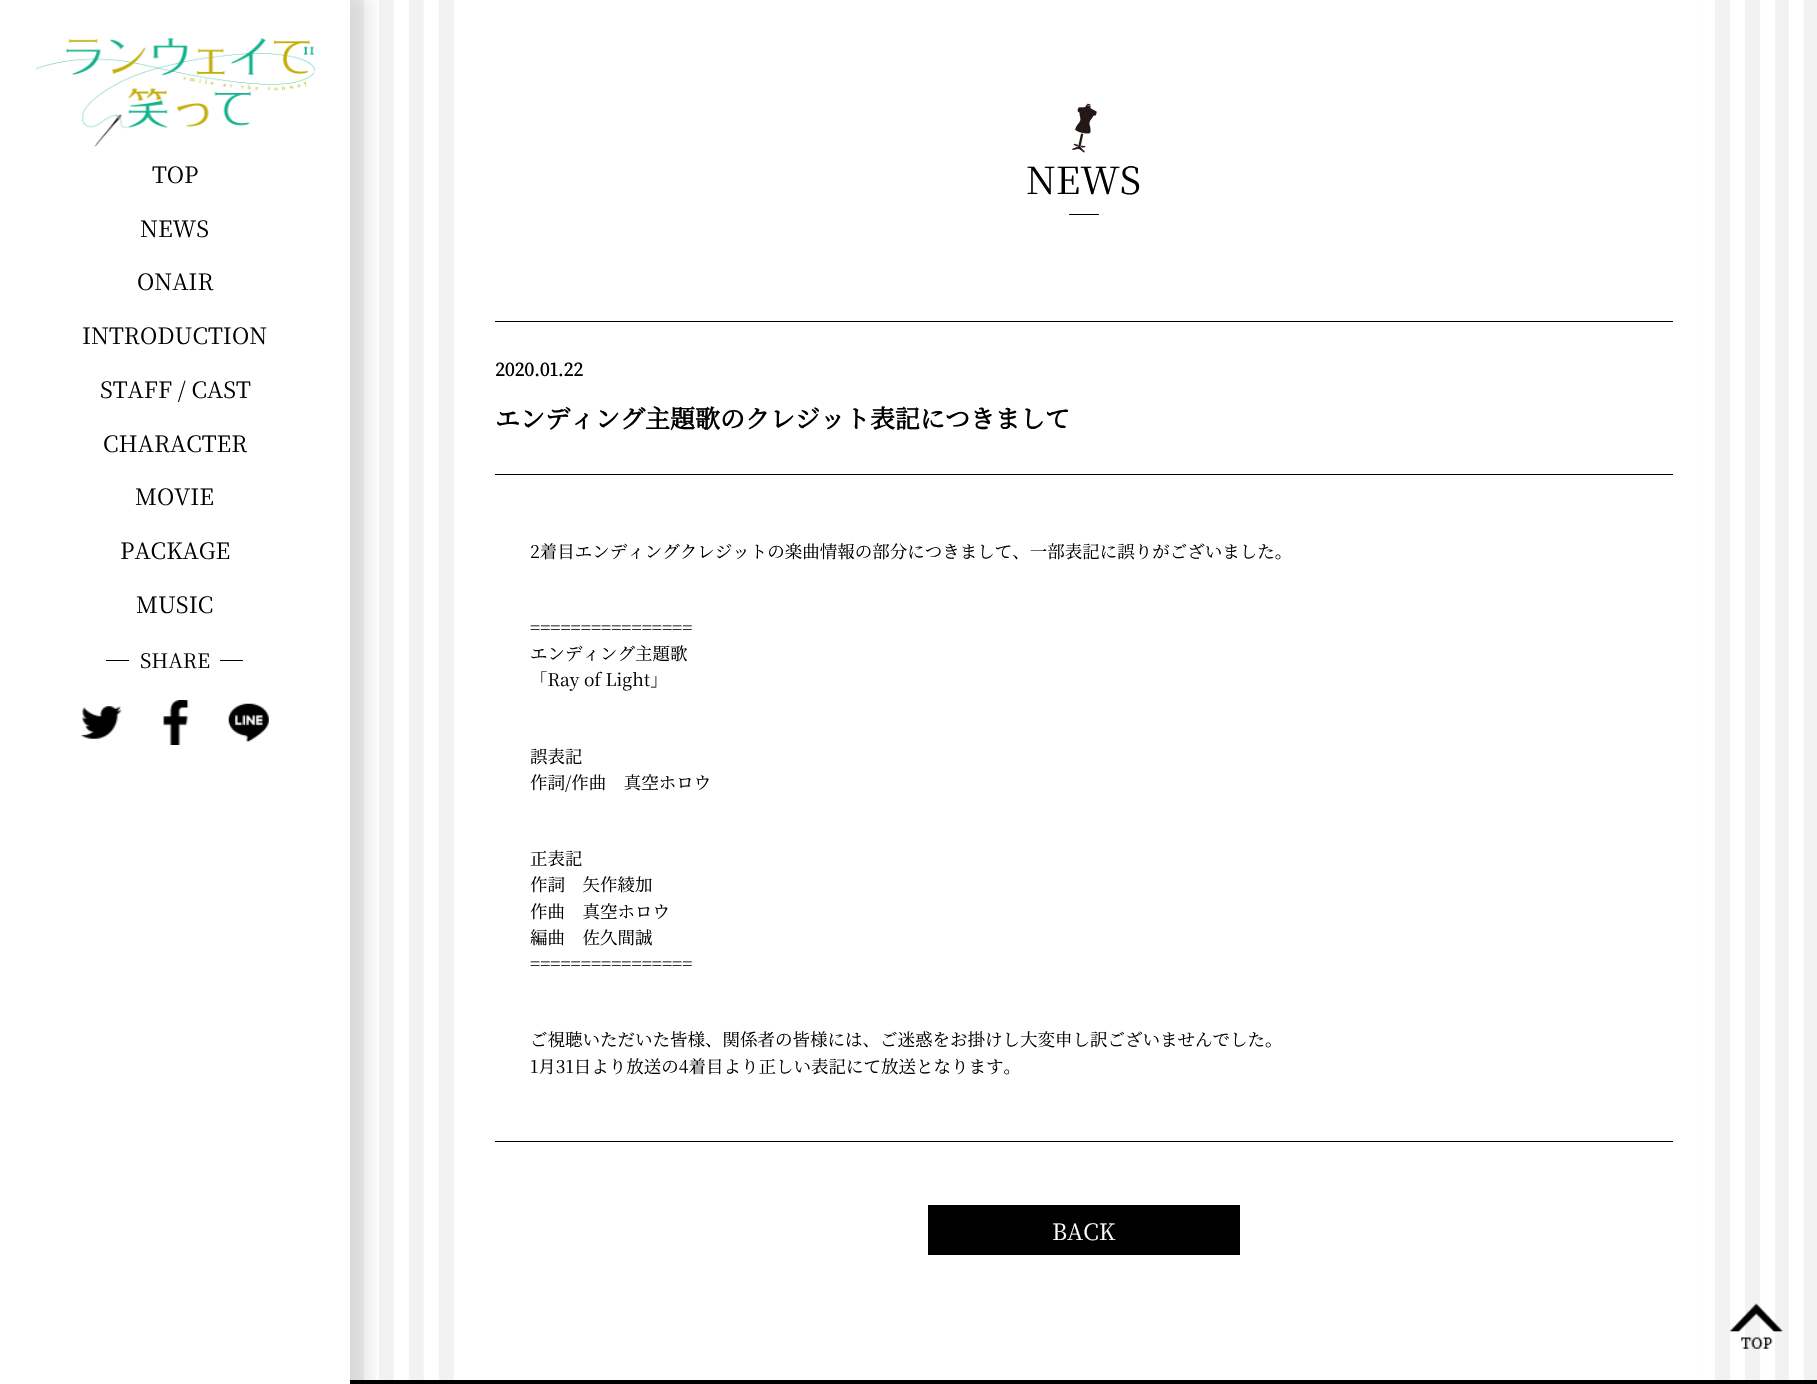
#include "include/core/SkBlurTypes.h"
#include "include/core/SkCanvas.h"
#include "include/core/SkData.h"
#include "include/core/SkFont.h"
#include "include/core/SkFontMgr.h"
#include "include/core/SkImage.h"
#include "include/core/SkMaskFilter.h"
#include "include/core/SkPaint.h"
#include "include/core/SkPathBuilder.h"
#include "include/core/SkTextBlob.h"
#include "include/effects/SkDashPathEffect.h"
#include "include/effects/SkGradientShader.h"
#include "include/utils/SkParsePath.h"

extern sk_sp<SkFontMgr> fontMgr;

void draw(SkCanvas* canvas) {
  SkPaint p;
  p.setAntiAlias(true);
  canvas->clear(SK_ColorWHITE);
  canvas->drawImageRect(SkImages::DeferredFromEncodedData(SkData::MakeFromFileName("images/5.png")), SkRect::MakeLTRB(350, 0, 1817, 1380), SkSamplingOptions());
  p.setColor(SK_ColorBLACK);
  canvas->drawRect(SkRect::MakeLTRB(350, 1380, 1817, 1384), p);
  canvas->save();
  canvas->clipRect(SkRect::MakeLTRB(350, 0, 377, 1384));
  p.setColor(SkColorSetARGB(26, 0, 0, 0));
  p.setMaskFilter(SkMaskFilter::MakeBlur(kNormal_SkBlurStyle, 9.5f));
  canvas->drawRect(SkRect::MakeLTRB(6, -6, 369, 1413), p);
  p.setMaskFilter(nullptr);
  canvas->restore();
  canvas->drawImageRect(SkImages::DeferredFromEncodedData(SkData::MakeFromFileName("images/1.png")), SkRect::MakeLTRB(35, 38, 315, 147), SkSamplingOptions());
  p.setColor(SK_ColorBLACK);
  canvas->drawRect(SkRect::MakeLTRB(106, 660, 129, 661), p);
  canvas->drawRect(SkRect::MakeLTRB(220, 660, 243, 661), p);
  canvas->drawImageRect(SkImages::DeferredFromEncodedData(SkData::MakeFromFileName("images/2.png")), SkRect::MakeLTRB(81, 706, 122, 739), SkSamplingOptions());
  canvas->drawImageRect(SkImages::DeferredFromEncodedData(SkData::MakeFromFileName("images/3.png")), SkRect::MakeLTRB(163, 700, 189, 745), SkSamplingOptions());
  canvas->drawImageRect(SkImages::DeferredFromEncodedData(SkData::MakeFromFileName("images/4.png")), SkRect::MakeLTRB(228, 703, 269, 742), SkSamplingOptions());
  p.setColor(SK_ColorWHITE);
  canvas->drawRect(SkRect::MakeLTRB(468, 0, 1700, 1380), p);
  canvas->drawImageRect(SkImages::DeferredFromEncodedData(SkData::MakeFromFileName("images/6.png")), SkRect::MakeLTRB(1072, 103, 1097, 153), SkSamplingOptions());
  p.setColor(SK_ColorBLACK);
  canvas->drawRect(SkRect::MakeLTRB(1069, 214, 1099, 215), p);
  canvas->drawRect(SkRect::MakeLTRB(495, 321, 1673, 322), p);
  canvas->drawRect(SkRect::MakeLTRB(495, 474, 1673, 475), p);
  canvas->drawRect(SkRect::MakeLTRB(495, 1141, 1673, 1142), p);
  canvas->drawRect(SkRect::MakeLTRB(928, 1205, 1240, 1255), p);
  canvas->drawImageRect(SkImages::DeferredFromEncodedData(SkData::MakeFromFileName("images/7.png")), SkRect::MakeLTRB(1730, 1303, 1783, 1349), SkSamplingOptions());
  SkFont font1(fontMgr->matchFamilyStyle("Noto Serif JP", SkFontStyle(200, SkFontStyle::kNormal_Width, SkFontStyle::kUpright_Slant)), 22.5f);
  font1.setSubpixel(true);
  canvas->drawString("TOP", 152, 183, font1, p);
  canvas->drawString("NEWS", 140, 237, font1, p);
  canvas->drawString("ONAIR", 137, 290, font1, p);
  canvas->drawString("INTRODUCTION", 82, 344, font1, p);
  canvas->drawString("STAFF / CAST", 100, 398, font1, p);
  canvas->drawString("CHARACTER", 103, 452, font1, p);
  canvas->drawString("MOVIE", 135, 505, font1, p);
  canvas->drawString("PACKAGE", 120, 559, font1, p);
  canvas->drawString("MUSIC", 136, 613, font1, p);
  SkFont font2(fontMgr->matchFamilyStyle("Noto Serif JP", SkFontStyle(200, SkFontStyle::kNormal_Width, SkFontStyle::kUpright_Slant)), 20);
  font2.setSubpixel(true);
  canvas->drawString("SHARE", 140, 668, font2, p);
  SkFont font3(fontMgr->matchFamilyStyle("Noto Serif JP", SkFontStyle(200, SkFontStyle::kNormal_Width, SkFontStyle::kUpright_Slant)), 37.5f);
  font3.setSubpixel(true);
  canvas->drawString("NEWS", 1026, 194, font3, p);
  SkFont font4(fontMgr->matchFamilyStyle("Noto Serif JP", SkFontStyle::Bold()), 17.5f);
  font4.setSubpixel(true);
  canvas->drawString("2020.01.22", 495, 376, font4, p);
  SkFont font5(fontMgr->matchFamilyStyle("Noto Serif JP", SkFontStyle::Bold()), 25);
  font5.setSubpixel(true);
  canvas->drawString("エンディング主題歌のクレジット表記につきまして", 495, 428, font5, p);
  SkFont font6(fontMgr->matchFamilyStyle("Noto Serif JP", SkFontStyle(200, SkFontStyle::kNormal_Width, SkFontStyle::kUpright_Slant)), 17.5f);
  font6.setSubpixel(true);
  canvas->drawString("2着目エンディングクレジットの楽曲情報の部分につきまして、一部表記に誤りがございました。", 530, 558, font6, p);
  canvas->drawString("================", 530, 634, font6, p);
  canvas->drawString("エンディング主題歌", 530, 660, font6, p);
  canvas->drawString("「Ray of Light」", 530, 686, font6, p);
  canvas->drawString("誤表記", 530, 763, font6, p);
  canvas->drawString("作詞/作曲　真空ホロウ", 530, 789, font6, p);
  canvas->drawString("正表記", 530, 865, font6, p);
  canvas->drawString("作詞　矢作綾加", 530, 891, font6, p);
  canvas->drawString("作曲　真空ホロウ", 530, 918, font6, p);
  canvas->drawString("編曲　佐久間誠", 530, 944, font6, p);
  canvas->drawString("================", 530, 970, font6, p);
  canvas->drawString("ご視聴いただいた皆様、関係者の皆様には、ご迷惑をお掛けし大変申し訳ございませんでした。", 530, 1046, font6, p);
  canvas->drawString("1月31日より放送の4着目より正しい表記にて放送となります。", 530, 1073, font6, p);
  p.setColor(SK_ColorWHITE);
  canvas->drawString("BACK", 1052, 1240, font1, p);
}
